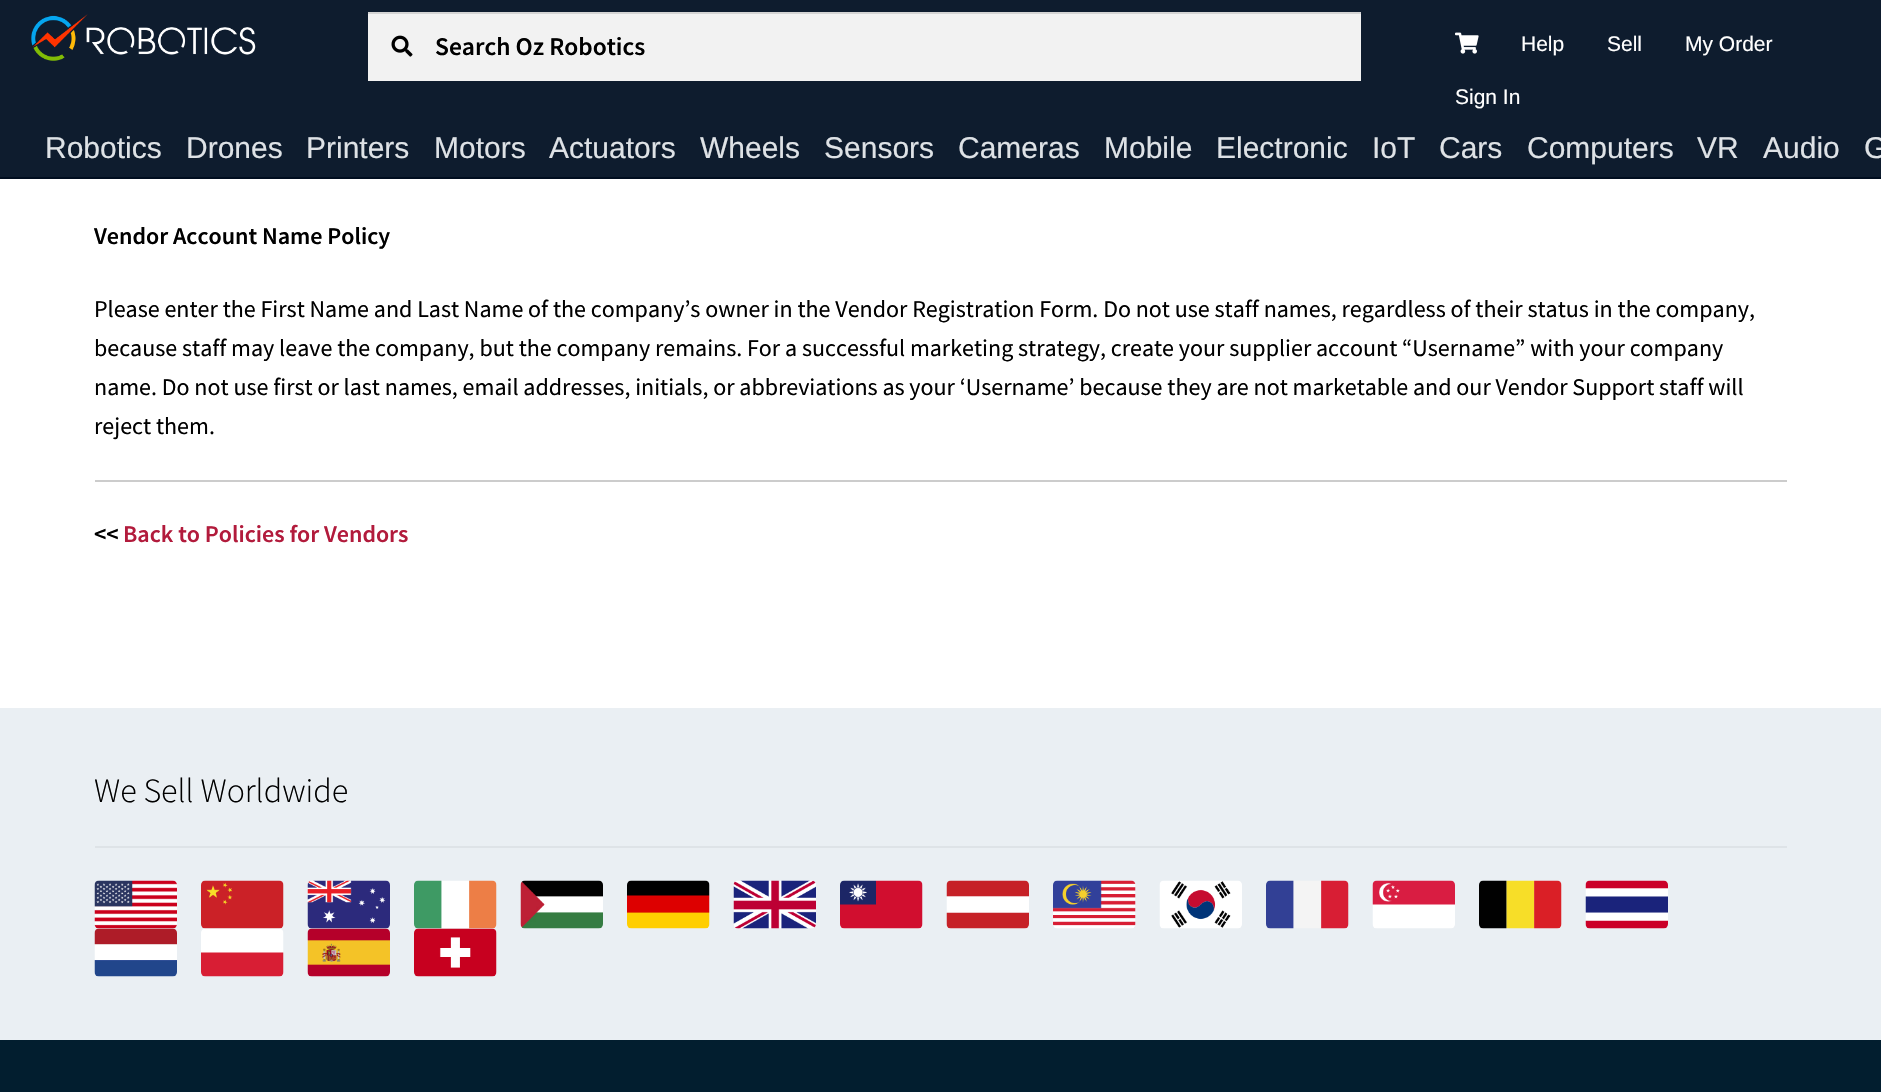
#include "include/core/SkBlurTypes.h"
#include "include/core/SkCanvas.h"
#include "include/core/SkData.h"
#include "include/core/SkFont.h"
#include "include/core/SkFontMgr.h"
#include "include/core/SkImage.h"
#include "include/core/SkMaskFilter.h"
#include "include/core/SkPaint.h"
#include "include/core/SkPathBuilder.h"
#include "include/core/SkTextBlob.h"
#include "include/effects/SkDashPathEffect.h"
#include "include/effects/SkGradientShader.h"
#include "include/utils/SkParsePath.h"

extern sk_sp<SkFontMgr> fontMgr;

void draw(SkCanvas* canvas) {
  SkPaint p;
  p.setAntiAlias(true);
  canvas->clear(SK_ColorWHITE);
  p.setColor(SkColorSetRGB(14, 28, 46));
  canvas->drawRect(SkRect::MakeLTRB(0, 0, 1881, 177), p);
  p.setColor(SkColorSetRGB(0, 13, 31));
  canvas->drawRect(SkRect::MakeLTRB(0, 177, 1881, 179), p);
  canvas->drawImageRect(SkImages::DeferredFromEncodedData(SkData::MakeFromFileName("images/1.png")), SkRect::MakeLTRB(31, 14, 256, 61), SkSamplingOptions());
  p.setColor(SkColorSetRGB(242, 242, 242));
  canvas->drawRect(SkRect::MakeLTRB(368, 14, 1361, 81), p);
  canvas->drawImageRect(SkImages::DeferredFromEncodedData(SkData::MakeFromFileName("images/2.png")), SkRect::MakeLTRB(391, 35, 413, 57), SkSamplingOptions());
  p.setColor(SkColorSetRGB(212, 212, 212));
  canvas->drawRect(SkRect::MakeLTRB(368, 12, 1361, 14), p);
  canvas->drawImageRect(SkImages::DeferredFromEncodedData(SkData::MakeFromFileName("images/3.png")), SkRect::MakeLTRB(1455, 32, 1479, 54), SkSamplingOptions());
  p.setColor(SkColorSetRGB(204, 204, 204));
  canvas->drawRect(SkRect::MakeLTRB(95, 480, 1787, 482), p);
  p.setColor(SkColorSetRGB(234, 239, 243));
  canvas->drawRect(SkRect::MakeLTRB(0, 708, 1881, 1040), p);
  p.setColor(SkColorSetRGB(222, 227, 231));
  canvas->drawRect(SkRect::MakeLTRB(95, 846, 1787, 848), p);
  canvas->drawImageRect(SkImages::DeferredFromEncodedData(SkData::MakeFromFileName("images/4.png")), SkRect::MakeLTRB(94, 880, 177, 929), SkSamplingOptions());
  canvas->drawImageRect(SkImages::DeferredFromEncodedData(SkData::MakeFromFileName("images/5.png")), SkRect::MakeLTRB(201, 880, 284, 929), SkSamplingOptions());
  canvas->drawImageRect(SkImages::DeferredFromEncodedData(SkData::MakeFromFileName("images/6.png")), SkRect::MakeLTRB(307, 880, 390, 929), SkSamplingOptions());
  canvas->drawImageRect(SkImages::DeferredFromEncodedData(SkData::MakeFromFileName("images/7.png")), SkRect::MakeLTRB(414, 880, 497, 929), SkSamplingOptions());
  canvas->drawImageRect(SkImages::DeferredFromEncodedData(SkData::MakeFromFileName("images/8.png")), SkRect::MakeLTRB(520, 880, 603, 929), SkSamplingOptions());
  canvas->drawImageRect(SkImages::DeferredFromEncodedData(SkData::MakeFromFileName("images/9.png")), SkRect::MakeLTRB(627, 880, 710, 929), SkSamplingOptions());
  canvas->drawImageRect(SkImages::DeferredFromEncodedData(SkData::MakeFromFileName("images/10.png")), SkRect::MakeLTRB(733, 880, 816, 929), SkSamplingOptions());
  canvas->drawImageRect(SkImages::DeferredFromEncodedData(SkData::MakeFromFileName("images/11.png")), SkRect::MakeLTRB(840, 880, 923, 929), SkSamplingOptions());
  canvas->drawImageRect(SkImages::DeferredFromEncodedData(SkData::MakeFromFileName("images/12.png")), SkRect::MakeLTRB(946, 880, 1029, 929), SkSamplingOptions());
  canvas->drawImageRect(SkImages::DeferredFromEncodedData(SkData::MakeFromFileName("images/13.png")), SkRect::MakeLTRB(1053, 880, 1136, 929), SkSamplingOptions());
  canvas->drawImageRect(SkImages::DeferredFromEncodedData(SkData::MakeFromFileName("images/14.png")), SkRect::MakeLTRB(1159, 880, 1242, 929), SkSamplingOptions());
  canvas->drawImageRect(SkImages::DeferredFromEncodedData(SkData::MakeFromFileName("images/15.png")), SkRect::MakeLTRB(1266, 880, 1349, 929), SkSamplingOptions());
  canvas->drawImageRect(SkImages::DeferredFromEncodedData(SkData::MakeFromFileName("images/16.png")), SkRect::MakeLTRB(1372, 880, 1455, 929), SkSamplingOptions());
  canvas->drawImageRect(SkImages::DeferredFromEncodedData(SkData::MakeFromFileName("images/17.png")), SkRect::MakeLTRB(1479, 880, 1562, 929), SkSamplingOptions());
  canvas->drawImageRect(SkImages::DeferredFromEncodedData(SkData::MakeFromFileName("images/18.png")), SkRect::MakeLTRB(1585, 880, 1668, 929), SkSamplingOptions());
  canvas->drawImageRect(SkImages::DeferredFromEncodedData(SkData::MakeFromFileName("images/19.png")), SkRect::MakeLTRB(94, 928, 177, 977), SkSamplingOptions());
  canvas->drawImageRect(SkImages::DeferredFromEncodedData(SkData::MakeFromFileName("images/20.png")), SkRect::MakeLTRB(201, 928, 284, 977), SkSamplingOptions());
  canvas->drawImageRect(SkImages::DeferredFromEncodedData(SkData::MakeFromFileName("images/21.png")), SkRect::MakeLTRB(307, 928, 390, 977), SkSamplingOptions());
  canvas->drawImageRect(SkImages::DeferredFromEncodedData(SkData::MakeFromFileName("images/22.png")), SkRect::MakeLTRB(414, 928, 497, 977), SkSamplingOptions());
  p.setColor(SkColorSetRGB(2, 30, 47));
  canvas->drawRect(SkRect::MakeLTRB(0, 1040, 1881, 1092), p);
  SkFont font1(fontMgr->matchFamilyStyle("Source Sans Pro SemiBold", SkFontStyle(600, SkFontStyle::kNormal_Width, SkFontStyle::kUpright_Slant)), 25.5f);
  font1.setSubpixel(true);
  p.setColor(SK_ColorBLACK);
  canvas->drawString("Search Oz Robotics", 435, 55, font1, p);
  SkFont font2(fontMgr->matchFamilyStyle("Liberation Sans", SkFontStyle::Normal()), 21);
  font2.setSubpixel(true);
  p.setColor(SK_ColorWHITE);
  canvas->drawString("Help", 1521, 51, font2, p);
  canvas->drawString("Sell", 1607, 51, font2, p);
  canvas->drawString("My Order", 1685, 51, font2, p);
  canvas->drawString("Sign In", 1455, 104, font2, p);
  SkFont font3(fontMgr->matchFamilyStyle("Liberation Sans", SkFontStyle::Normal()), 30);
  font3.setSubpixel(true);
  p.setColor(SkColorSetRGB(222, 226, 230));
  canvas->drawString("Robotics", 45, 158, font3, p);
  canvas->drawString("Drones", 186, 158, font3, p);
  canvas->drawString("Printers", 306, 158, font3, p);
  canvas->drawString("Motors", 434, 158, font3, p);
  canvas->drawString("Actuators", 549, 158, font3, p);
  canvas->drawString("Wheels", 700, 158, font3, p);
  canvas->drawString("Sensors", 824, 158, font3, p);
  canvas->drawString("Cameras", 958, 158, font3, p);
  canvas->drawString("Mobile", 1104, 158, font3, p);
  canvas->drawString("Electronic", 1216, 158, font3, p);
  canvas->drawString("IoT", 1372, 158, font3, p);
  canvas->drawString("Cars", 1439, 158, font3, p);
  canvas->drawString("Computers", 1527, 158, font3, p);
  canvas->drawString("VR", 1697, 158, font3, p);
  canvas->drawString("Audio", 1763, 158, font3, p);
  canvas->drawString("G", 1864, 158, font3, p);
  SkFont font4(fontMgr->matchFamilyStyle("Source Sans Pro SemiBold", SkFontStyle(600, SkFontStyle::kNormal_Width, SkFontStyle::kUpright_Slant)), 24);
  font4.setSubpixel(true);
  p.setColor(SK_ColorBLACK);
  canvas->drawString("Vendor Account Name Policy", 94, 244, font4, p);
  SkFont font5(fontMgr->matchFamilyStyle("Source Sans Pro", SkFontStyle::Normal()), 24);
  font5.setSubpixel(true);
  canvas->drawString("Please enter the First Name and Last Name of the company’s owner in the Vendor Registration Form. Do not use staff names, regardless of their status in the company,", 94, 317, font5, p);
  canvas->drawString("because staff may leave the company, but the company remains. For a successful marketing strategy, create your supplier account “Username” with your company", 94, 356, font5, p);
  canvas->drawString("name. Do not use first or last names, email addresses, initials, or abbreviations as your ‘Username’ because they are not marketable and our Vendor Support staff will", 94, 395, font5, p);
  canvas->drawString("reject them.", 94, 434, font5, p);
  canvas->drawString("<<", 94, 542, font4, p);
  p.setColor(SkColorSetRGB(178, 27, 60));
  canvas->drawString("Back to Policies for Vendors", 123, 542, font4, p);
  SkFont font6(fontMgr->matchFamilyStyle("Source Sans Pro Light", SkFontStyle(300, SkFontStyle::kNormal_Width, SkFontStyle::kUpright_Slant)), 34);
  font6.setSubpixel(true);
  p.setColor(SK_ColorBLACK);
  canvas->drawString("We Sell Worldwide", 94, 802, font6, p);
}
